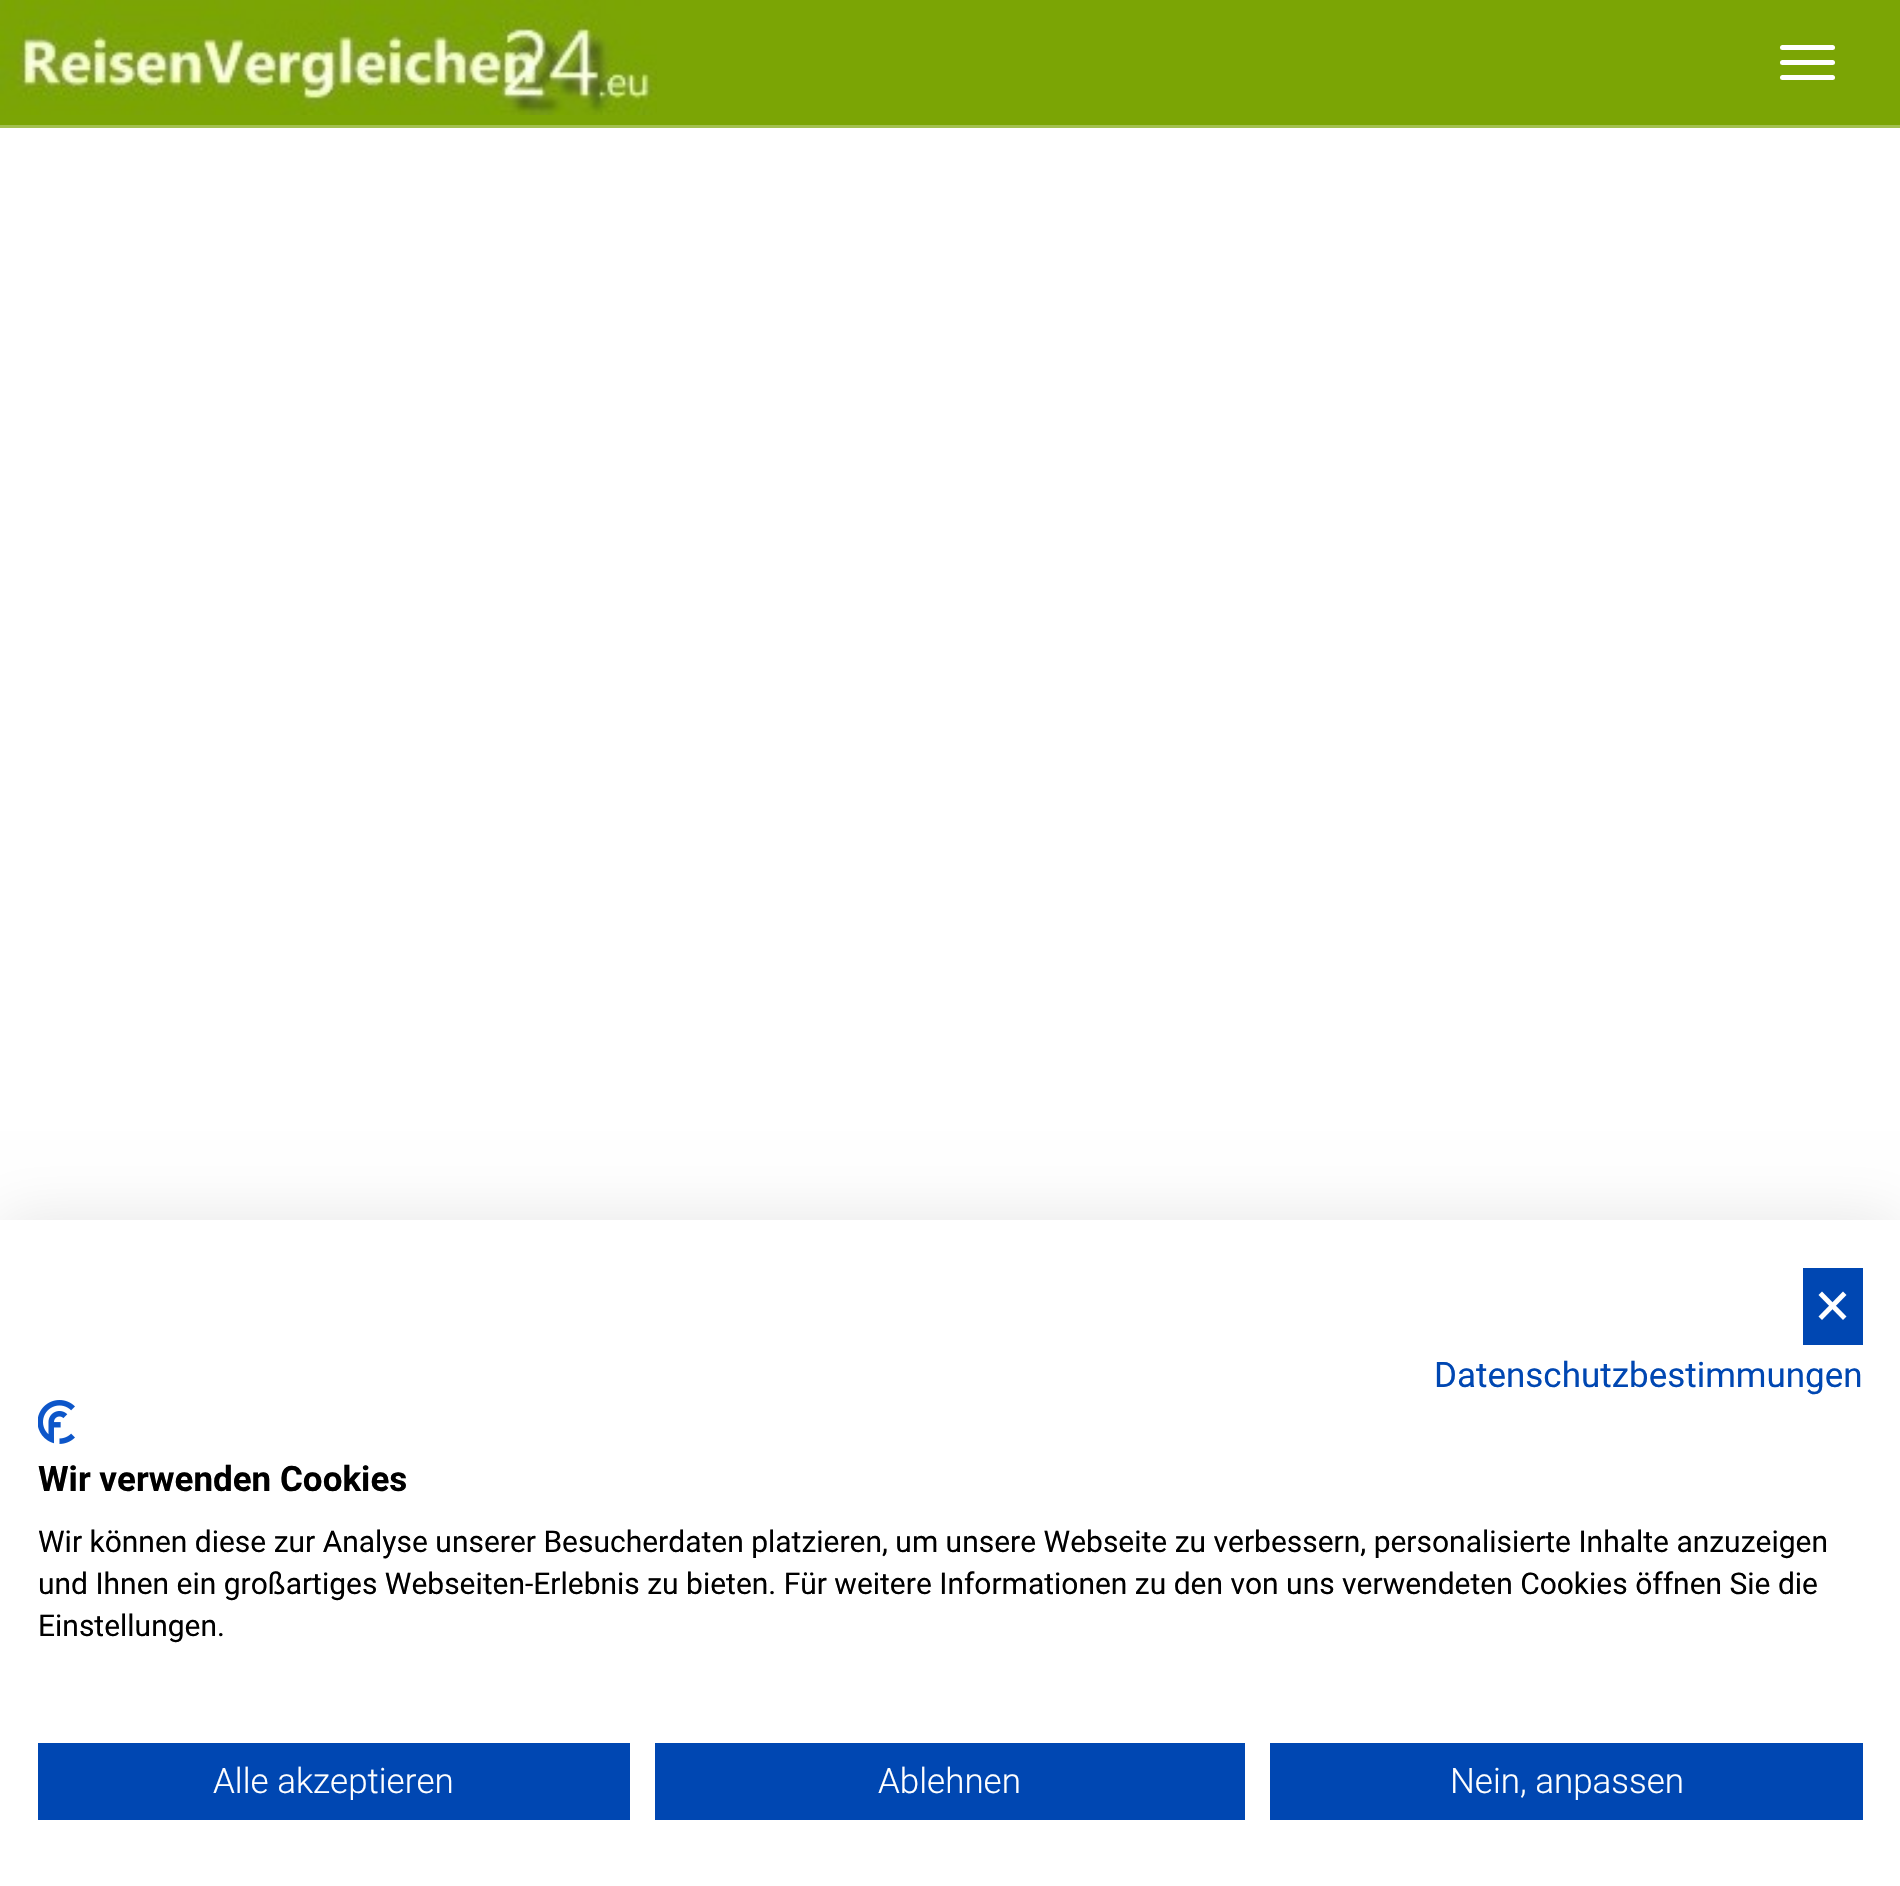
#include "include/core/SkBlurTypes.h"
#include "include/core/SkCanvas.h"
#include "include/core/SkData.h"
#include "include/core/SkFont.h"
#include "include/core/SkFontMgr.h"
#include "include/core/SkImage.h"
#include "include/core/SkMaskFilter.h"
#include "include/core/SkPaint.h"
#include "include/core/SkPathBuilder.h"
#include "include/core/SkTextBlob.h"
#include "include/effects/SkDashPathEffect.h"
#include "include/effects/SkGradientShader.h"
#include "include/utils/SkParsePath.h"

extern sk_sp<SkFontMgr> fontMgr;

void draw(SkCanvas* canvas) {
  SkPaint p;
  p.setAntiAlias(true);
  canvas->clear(SK_ColorWHITE);
  p.setColor(SkColorSetRGB(123, 165, 5));
  canvas->drawRect(SkRect::MakeLTRB(0, 0, 1900, 125), p);
  p.setColor(SkColorSetRGB(162, 192, 80));
  canvas->drawRect(SkRect::MakeLTRB(0, 125, 1900, 128), p);
  canvas->drawImageRect(SkImages::DeferredFromEncodedData(SkData::MakeFromFileName("images/1.png")), SkRect::MakeLTRB(0, 0, 657, 115), SkSamplingOptions());
  p.setColor(SK_ColorWHITE);
  canvas->drawRoundRect(SkRect::MakeLTRB(1780, 45, 1835, 50), 2.5f, 2.5f, p);
  canvas->drawRoundRect(SkRect::MakeLTRB(1780, 60, 1835, 65), 2.5f, 2.5f, p);
  canvas->drawRoundRect(SkRect::MakeLTRB(1780, 75, 1835, 80), 2.5f, 2.5f, p);
  p.setColor(SkColorSetARGB(26, 0, 0, 0));
  p.setMaskFilter(SkMaskFilter::MakeBlur(kNormal_SkBlurStyle, 30));
  canvas->drawRect(SkRect::MakeLTRB(0, 1220, 1900, 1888), p);
  p.setMaskFilter(nullptr);
  p.setColor(SK_ColorWHITE);
  canvas->drawRect(SkRect::MakeLTRB(0, 1220, 1900, 1886), p);
  p.setColor(SkColorSetRGB(0, 71, 178));
  canvas->drawRect(SkRect::MakeLTRB(1803, 1268, 1863, 1345), p);
  p.setColor(SK_ColorWHITE);
  canvas->drawPath(SkPathBuilder().moveTo(1843, 1291.5f).lineTo(1846.5f, 1295).lineTo(1822, 1320).lineTo(1818.5f, 1316.5f).close().detach(), p);
  canvas->drawPath(SkPathBuilder().moveTo(1818.5f, 1295).lineTo(1822, 1291.5f).lineTo(1846.5f, 1316.5f).lineTo(1843, 1320).close().detach(), p);
  canvas->drawImageRect(SkImages::DeferredFromEncodedData(SkData::MakeFromFileName("images/2.png")), SkRect::MakeLTRB(38, 1400, 75, 1444), SkSamplingOptions());
  p.setColor(SkColorSetRGB(0, 71, 178));
  canvas->drawRect(SkRect::MakeLTRB(38, 1743, 630, 1820), p);
  canvas->drawRect(SkRect::MakeLTRB(655, 1743, 1245, 1820), p);
  canvas->drawRect(SkRect::MakeLTRB(1270, 1743, 1863, 1820), p);
  SkFont font1(fontMgr->matchFamilyStyle("Roboto", SkFontStyle::Normal()), 35);
  font1.setSubpixel(true);
  canvas->drawString("Datenschutzbestimmungen", 1434, 1387, font1, p);
  SkFont font2(fontMgr->matchFamilyStyle("Roboto", SkFontStyle::Bold()), 35);
  font2.setSubpixel(true);
  p.setColor(SK_ColorBLACK);
  canvas->drawString("Wir verwenden Cookies", 38, 1491, font2, p);
  SkFont font3(fontMgr->matchFamilyStyle("Roboto", SkFontStyle::Normal()), 30);
  font3.setSubpixel(true);
  canvas->drawString("Wir können diese zur Analyse unserer Besucherdaten platzieren, um unsere Webseite zu verbessern, personalisierte Inhalte anzuzeigen", 38, 1552, font3, p);
  canvas->drawString("und Ihnen ein großartiges Webseiten-Erlebnis zu bieten. Für weitere Informationen zu den von uns verwendeten Cookies öffnen Sie die", 38, 1594, font3, p);
  canvas->drawString("Einstellungen.", 38, 1636, font3, p);
  SkFont font4(fontMgr->matchFamilyStyle("Roboto", SkFontStyle(300, SkFontStyle::kNormal_Width, SkFontStyle::kUpright_Slant)), 35);
  font4.setSubpixel(true);
  p.setColor(SK_ColorWHITE);
  canvas->drawString("Alle akzeptieren", 213, 1793, font4, p);
  canvas->drawString("Ablehnen", 878, 1793, font4, p);
  canvas->drawString("Nein, anpassen", 1450, 1793, font4, p);
}
